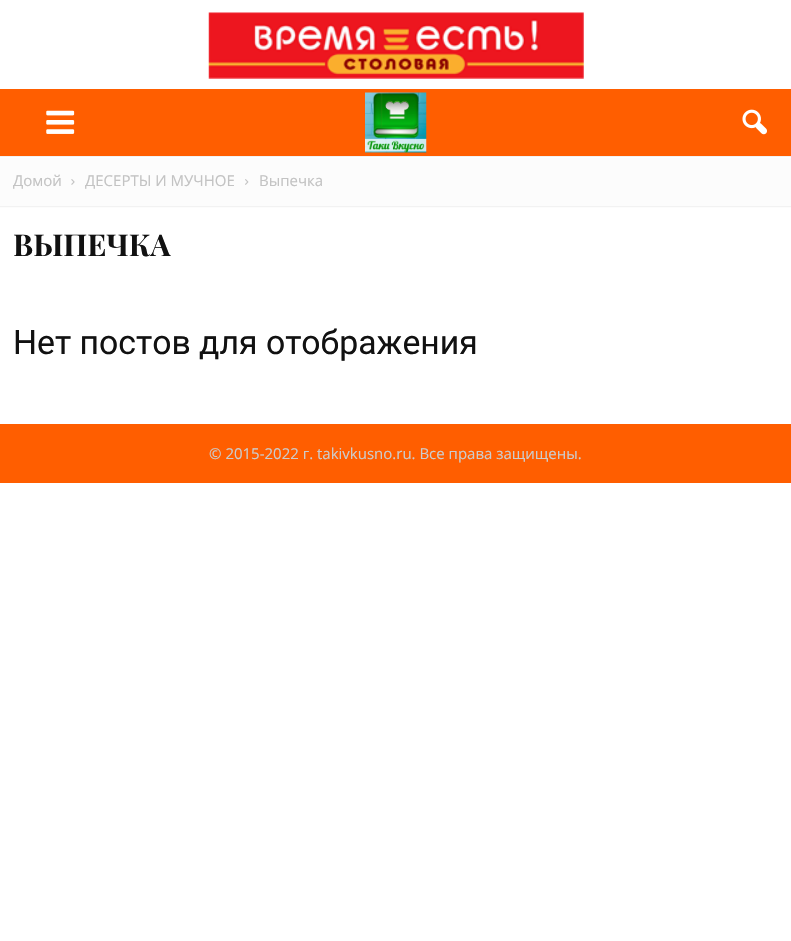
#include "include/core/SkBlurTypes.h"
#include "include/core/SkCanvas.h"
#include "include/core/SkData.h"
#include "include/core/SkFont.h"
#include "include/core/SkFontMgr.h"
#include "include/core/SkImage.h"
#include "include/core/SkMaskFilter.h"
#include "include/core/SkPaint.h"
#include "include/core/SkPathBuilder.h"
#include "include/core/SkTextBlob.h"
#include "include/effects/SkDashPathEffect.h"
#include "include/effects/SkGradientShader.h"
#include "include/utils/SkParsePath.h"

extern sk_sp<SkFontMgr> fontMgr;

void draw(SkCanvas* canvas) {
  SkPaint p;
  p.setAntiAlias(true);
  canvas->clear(SK_ColorWHITE);
  p.setColor(SkColorSetRGB(242, 242, 242));
  canvas->drawRect(SkRect::MakeLTRB(0, 156, 791, 157), p);
  canvas->drawImageRect(SkImages::DeferredFromEncodedData(SkData::MakeFromFileName("images/1.png")), SkRect::MakeLTRB(208, 12, 584, 79), SkSamplingOptions());
  p.setColor(SkColorSetRGB(255, 94, 0));
  canvas->drawRect(SkRect::MakeLTRB(0, 89, 791, 156), p);
  canvas->drawImageRect(SkImages::DeferredFromEncodedData(SkData::MakeFromFileName("images/2.png")), SkRect::MakeLTRB(46, 110, 75, 134), SkSamplingOptions());
  canvas->drawImageRect(SkImages::DeferredFromEncodedData(SkData::MakeFromFileName("images/3.png")), SkRect::MakeLTRB(365, 92, 427, 153), SkSamplingOptions());
  canvas->drawImageRect(SkImages::DeferredFromEncodedData(SkData::MakeFromFileName("images/4.png")), SkRect::MakeLTRB(742, 109, 767, 135), SkSamplingOptions());
  p.setColor(SkColorSetRGB(252, 252, 252));
  canvas->drawRect(SkRect::MakeLTRB(0, 158, 791, 208), p);
  p.setColor(SkColorSetRGB(242, 242, 242));
  canvas->drawRect(SkRect::MakeLTRB(0, 206, 791, 207), p);
  canvas->drawImageRect(SkImages::DeferredFromEncodedData(SkData::MakeFromFileName("images/5.png")), SkRect::MakeLTRB(71, 179, 75, 185), SkSamplingOptions());
  canvas->drawImageRect(SkImages::DeferredFromEncodedData(SkData::MakeFromFileName("images/6.png")), SkRect::MakeLTRB(245, 179, 249, 185), SkSamplingOptions());
  p.setColor(SkColorSetRGB(255, 94, 0));
  canvas->drawRect(SkRect::MakeLTRB(0, 424, 791, 483), p);
  SkFont font1(fontMgr->matchFamilyStyle("Open Sans", SkFontStyle::Normal()), 15);
  font1.setSubpixel(true);
  p.setColor(SkColorSetRGB(195, 195, 195));
  canvas->drawString("Домой", 13, 186, font1, p);
  canvas->drawString("ДЕСЕРТЫ И МУЧНОЕ", 85, 186, font1, p);
  canvas->drawString("Выпечка", 259, 186, font1, p);
  SkFont font2(fontMgr->matchFamilyStyle("Playfair Display SC", SkFontStyle::Bold()), 30);
  font2.setSubpixel(true);
  p.setColor(SkColorSetRGB(17, 17, 17));
  canvas->drawString("ВЫПЕЧКА", 13, 256, font2, p);
  SkFont font3(fontMgr->matchFamilyStyle("Roboto", SkFontStyle::Normal()), 33.75f);
  font3.setSubpixel(true);
  canvas->drawString("Нет постов для отображения", 13, 354, font3, p);
  p.setColor(SkColorSetRGB(204, 204, 204));
  canvas->drawString("© 2015-2022 г. takivkusno.ru. Все права защищены.", 209, 459, font1, p);
}
